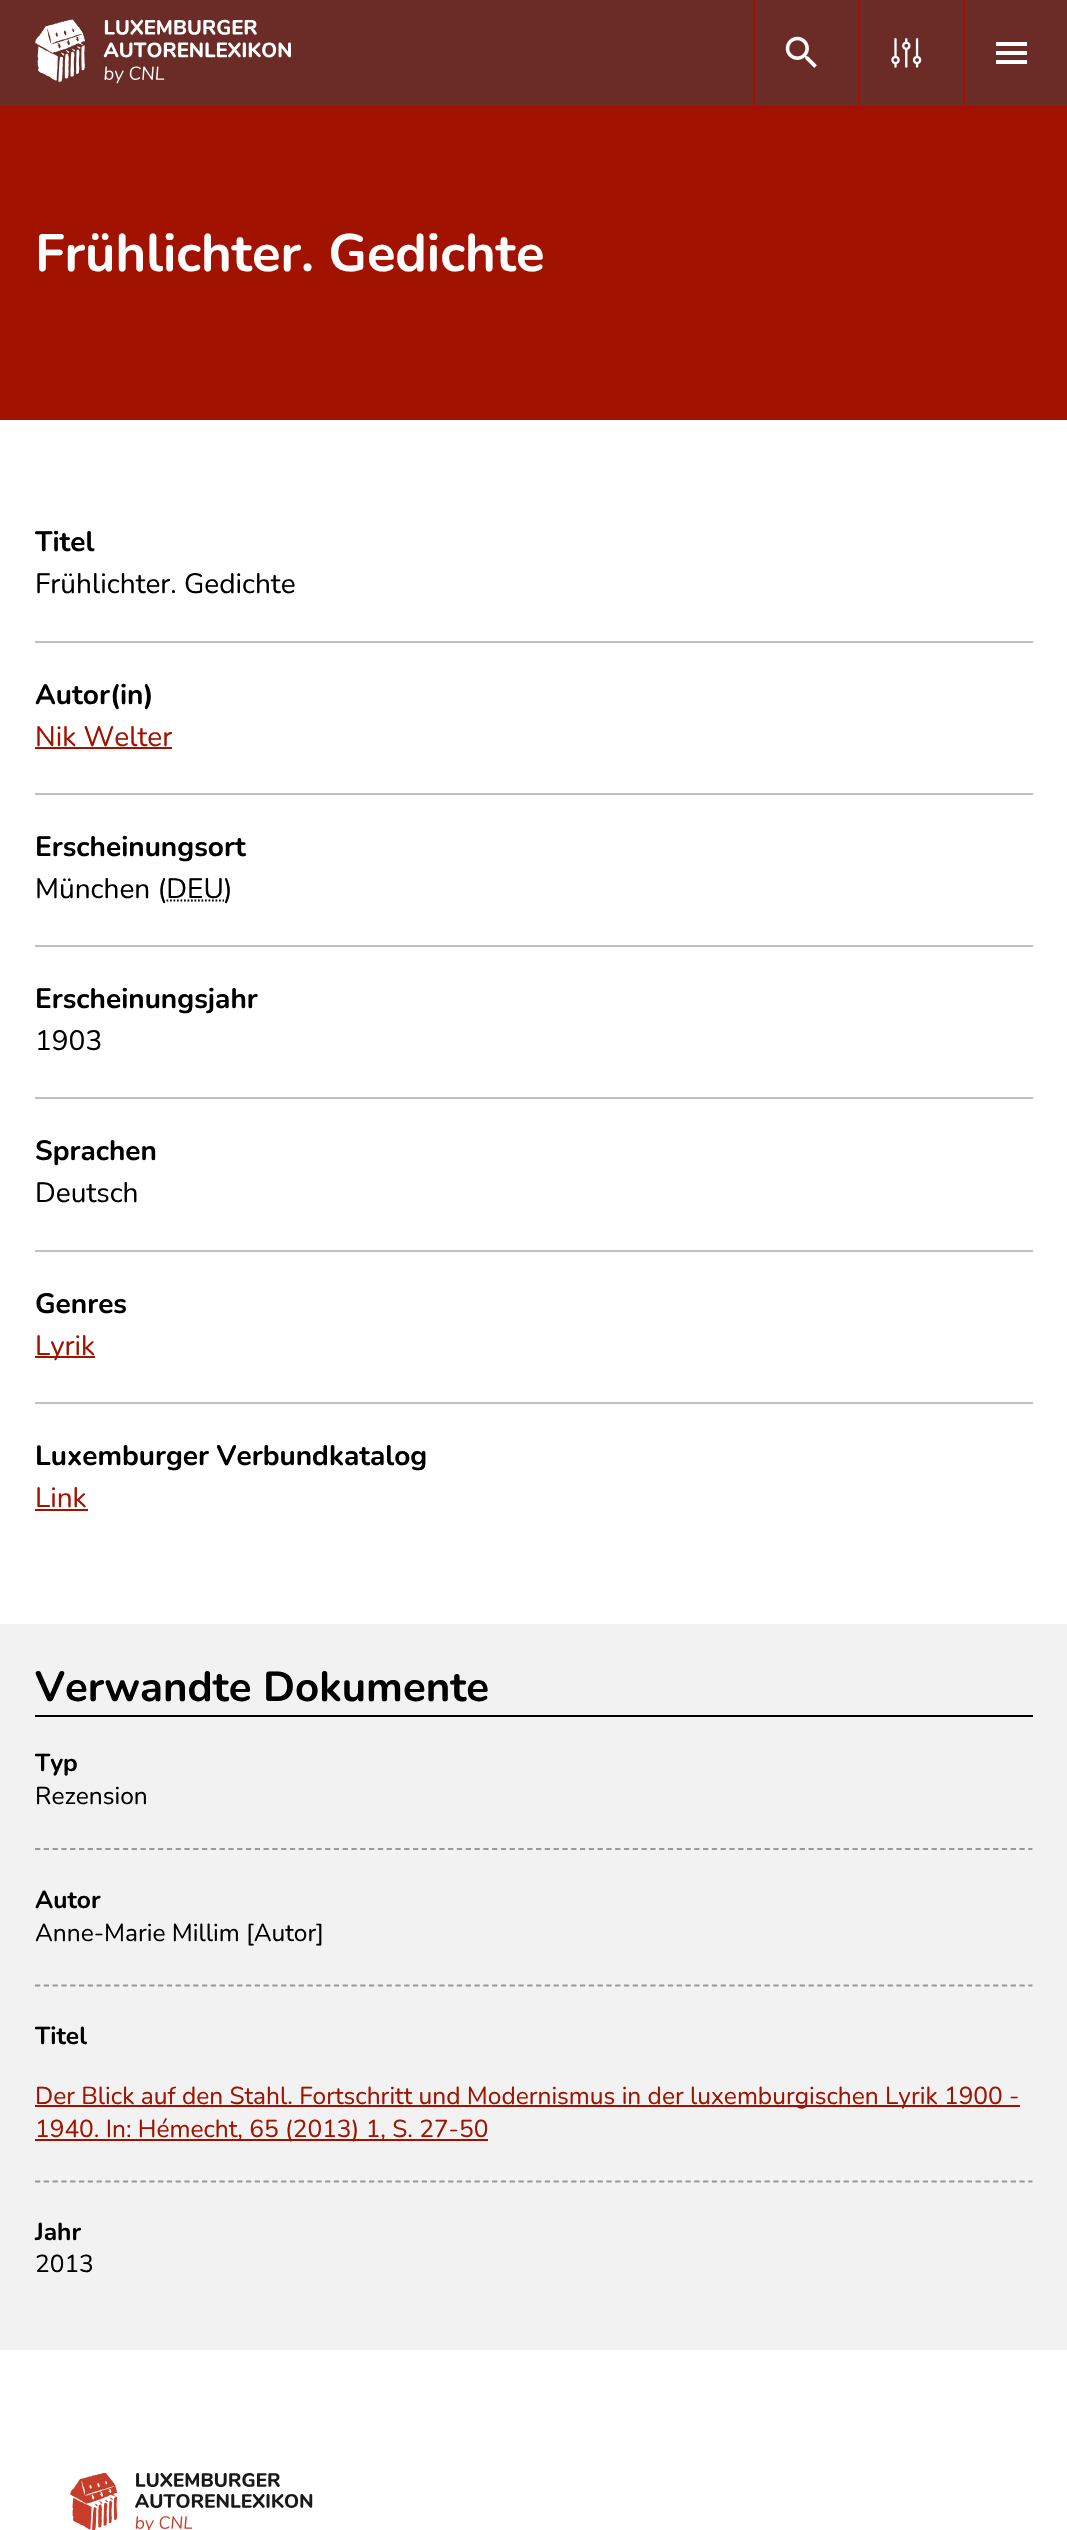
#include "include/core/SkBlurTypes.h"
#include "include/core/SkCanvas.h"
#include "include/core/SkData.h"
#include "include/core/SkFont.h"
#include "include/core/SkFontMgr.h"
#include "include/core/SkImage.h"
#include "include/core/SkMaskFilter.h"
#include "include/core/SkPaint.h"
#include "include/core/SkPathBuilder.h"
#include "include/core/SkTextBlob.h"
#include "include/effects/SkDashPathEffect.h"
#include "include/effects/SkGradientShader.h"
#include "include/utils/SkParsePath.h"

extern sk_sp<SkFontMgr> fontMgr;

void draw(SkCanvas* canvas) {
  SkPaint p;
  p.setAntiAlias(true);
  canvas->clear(SK_ColorWHITE);
  p.setColor(SkColorSetRGB(107, 44, 40));
  canvas->drawRect(SkRect::MakeLTRB(0, 0, 1067, 105), p);
  canvas->drawImageRect(SkImages::DeferredFromEncodedData(SkData::MakeFromFileName("images/1.png")), SkRect::MakeLTRB(35, 19, 291, 84), SkSamplingOptions());
  p.setColor(SkColorSetRGB(161, 19, 0));
  canvas->drawRect(SkRect::MakeLTRB(753, 0, 755, 105), p);
  canvas->drawImageRect(SkImages::DeferredFromEncodedData(SkData::MakeFromFileName("images/2.png")), SkRect::MakeLTRB(785, 36, 817, 68), SkSamplingOptions());
  canvas->drawRect(SkRect::MakeLTRB(858, 0, 860, 105), p);
  canvas->drawImageRect(SkImages::DeferredFromEncodedData(SkData::MakeFromFileName("images/3.png")), SkRect::MakeLTRB(891, 38, 922, 68), SkSamplingOptions());
  canvas->drawRect(SkRect::MakeLTRB(963, 0, 965, 105), p);
  p.setColor(SK_ColorWHITE);
  canvas->drawRect(SkRect::MakeLTRB(996, 51, 1027, 55), p);
  canvas->drawRect(SkRect::MakeLTRB(996, 42, 1027, 46), p);
  canvas->drawRect(SkRect::MakeLTRB(996, 60, 1027, 64), p);
  p.setColor(SkColorSetRGB(161, 19, 0));
  canvas->drawRect(SkRect::MakeLTRB(0, 105, 1067, 420), p);
  p.setColor(SkColorSetRGB(191, 191, 191));
  canvas->drawRect(SkRect::MakeLTRB(35, 641, 1033, 643), p);
  canvas->drawRect(SkRect::MakeLTRB(35, 793, 1033, 795), p);
  p.setColor(SkColorSetRGB(161, 19, 0));
  canvas->drawRect(SkRect::MakeLTRB(35, 747, 172, 749), p);
  p.setColor(SkColorSetRGB(191, 191, 191));
  canvas->drawRect(SkRect::MakeLTRB(35, 945, 1033, 947), p);
  p.setStyle(SkPaint::kStroke_Style);
  p.setStrokeWidth(1.8f);
  p.setColor(SK_ColorBLACK);
  p.setPathEffect(SkDashPathEffect::Make({{1.75f, 1.75f}}, 0));
  canvas->drawPath(SkPathBuilder().moveTo(166.5f, 900.5f).lineTo(224, 900.5f).detach(), p);
  p.setPathEffect(nullptr);
  p.setStyle(SkPaint::kFill_Style);
  p.setColor(SkColorSetRGB(191, 191, 191));
  canvas->drawRect(SkRect::MakeLTRB(35, 1097, 1033, 1099), p);
  canvas->drawRect(SkRect::MakeLTRB(35, 1250, 1033, 1252), p);
  canvas->drawRect(SkRect::MakeLTRB(35, 1402, 1033, 1404), p);
  p.setColor(SkColorSetRGB(161, 19, 0));
  canvas->drawRect(SkRect::MakeLTRB(35, 1356, 95, 1358), p);
  canvas->drawRect(SkRect::MakeLTRB(35, 1509, 88, 1511), p);
  p.setColor(SkColorSetRGB(242, 242, 242));
  canvas->drawRect(SkRect::MakeLTRB(0, 1624, 1067, 2350), p);
  p.setColor(SK_ColorBLACK);
  canvas->drawRect(SkRect::MakeLTRB(35, 1715, 1033, 1717), p);
  p.setStyle(SkPaint::kStroke_Style);
  p.setColor(SkColorSetRGB(153, 153, 153));
  p.setPathEffect(SkDashPathEffect::Make({{5.25f, 3.54f}}, 0));
  canvas->drawPath(SkPathBuilder().moveTo(35, 1849).lineTo(1032.5f, 1849).detach(), p);
  p.setPathEffect(nullptr);
  p.setPathEffect(SkDashPathEffect::Make({{5.25f, 3.54f}}, 0));
  canvas->drawPath(SkPathBuilder().moveTo(35, 1985.5f).lineTo(1032.5f, 1985.5f).detach(), p);
  p.setPathEffect(nullptr);
  p.setPathEffect(SkDashPathEffect::Make({{5.25f, 3.54f}}, 0));
  canvas->drawPath(SkPathBuilder().moveTo(35, 2181.5f).lineTo(1032.5f, 2181.5f).detach(), p);
  p.setPathEffect(nullptr);
  p.setStyle(SkPaint::kFill_Style);
  p.setColor(SkColorSetRGB(161, 19, 0));
  canvas->drawRect(SkRect::MakeLTRB(35, 2105, 1020, 2107), p);
  canvas->drawRect(SkRect::MakeLTRB(35, 2139, 488, 2141), p);
  canvas->drawImageRect(SkImages::DeferredFromEncodedData(SkData::MakeFromFileName("images/4.png")), SkRect::MakeLTRB(70, 2473, 313, 2530), SkSamplingOptions());
  SkFont font1(fontMgr->matchFamilyStyle("Nunito", SkFontStyle::Bold()), 52.5f);
  font1.setSubpixel(true);
  p.setColor(SK_ColorWHITE);
  canvas->drawString("Frühlichter. Gedichte", 35, 271, font1, p);
  SkFont font2(fontMgr->matchFamilyStyle("Nunito", SkFontStyle::Bold()), 28);
  font2.setSubpixel(true);
  p.setColor(SK_ColorBLACK);
  canvas->drawString("Titel", 35, 551, font2, p);
  SkFont font3(fontMgr->matchFamilyStyle("Nunito", SkFontStyle::Normal()), 28);
  font3.setSubpixel(true);
  canvas->drawString("Frühlichter. Gedichte", 35, 593, font3, p);
  canvas->drawString("Autor(in)", 35, 704, font2, p);
  p.setColor(SkColorSetRGB(161, 19, 0));
  canvas->drawString("Nik Welter", 35, 746, font3, p);
  p.setColor(SK_ColorBLACK);
  canvas->drawString("Erscheinungsort", 35, 856, font2, p);
  canvas->drawString("München (DEU)", 35, 898, font3, p);
  canvas->drawString("Erscheinungsjahr", 35, 1008, font2, p);
  canvas->drawString("1903", 35, 1050, font3, p);
  canvas->drawString("Sprachen", 35, 1160, font2, p);
  canvas->drawString("Deutsch", 35, 1202, font3, p);
  canvas->drawString("Genres", 35, 1313, font2, p);
  p.setColor(SkColorSetRGB(161, 19, 0));
  canvas->drawString("Lyrik", 35, 1355, font3, p);
  p.setColor(SK_ColorBLACK);
  canvas->drawString("Luxemburger Verbundkatalog", 35, 1465, font2, p);
  p.setColor(SkColorSetRGB(161, 19, 0));
  canvas->drawString("Link", 35, 1507, font3, p);
  SkFont font4(fontMgr->matchFamilyStyle("Nunito", SkFontStyle::Bold()), 42);
  font4.setSubpixel(true);
  p.setColor(SK_ColorBLACK);
  canvas->drawString("Verwandte Dokumente", 35, 1701, font4, p);
  SkFont font5(fontMgr->matchFamilyStyle("Nunito", SkFontStyle::Bold()), 24.5f);
  font5.setSubpixel(true);
  canvas->drawString("Typ", 35, 1771, font5, p);
  SkFont font6(fontMgr->matchFamilyStyle("Nunito", SkFontStyle::Normal()), 24.5f);
  font6.setSubpixel(true);
  canvas->drawString("Rezension", 35, 1804, font6, p);
  canvas->drawString("Autor", 35, 1908, font5, p);
  canvas->drawString("Anne-Marie Millim [Autor]", 35, 1941, font6, p);
  canvas->drawString("Titel", 35, 2044, font5, p);
  p.setColor(SkColorSetRGB(161, 19, 0));
  canvas->drawString("Der Blick auf den Stahl. Fortschritt und Modernismus in der luxemburgischen Lyrik 1900 -", 35, 2104, font6, p);
  canvas->drawString("1940. In: Hémecht, 65 (2013) 1, S. 27-50", 35, 2137, font6, p);
  p.setColor(SK_ColorBLACK);
  canvas->drawString("Jahr", 35, 2240, font5, p);
  canvas->drawString("2013", 35, 2272, font6, p);
}
